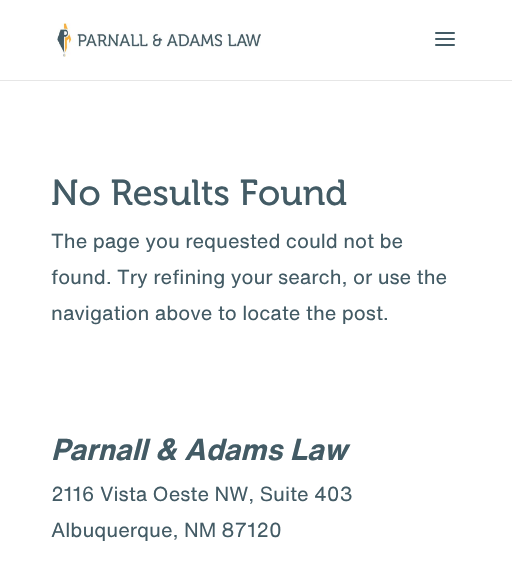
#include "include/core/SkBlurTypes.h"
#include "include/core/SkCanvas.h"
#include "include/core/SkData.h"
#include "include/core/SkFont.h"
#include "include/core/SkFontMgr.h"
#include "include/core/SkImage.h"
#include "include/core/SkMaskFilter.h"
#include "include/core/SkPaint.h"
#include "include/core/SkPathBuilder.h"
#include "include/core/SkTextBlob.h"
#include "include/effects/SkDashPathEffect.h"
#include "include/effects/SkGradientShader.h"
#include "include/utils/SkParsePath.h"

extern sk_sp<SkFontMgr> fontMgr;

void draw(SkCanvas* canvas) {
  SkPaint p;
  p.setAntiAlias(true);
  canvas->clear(SK_ColorWHITE);
  p.setColor(SkColorSetRGB(230, 230, 230));
  canvas->drawRect(SkRect::MakeLTRB(0, 80, 512, 81), p);
  canvas->drawImageRect(SkImages::DeferredFromEncodedData(SkData::MakeFromFileName("images/1.png")), SkRect::MakeLTRB(57, 23, 261, 57), SkSamplingOptions());
  canvas->drawImageRect(SkImages::DeferredFromEncodedData(SkData::MakeFromFileName("images/2.png")), SkRect::MakeLTRB(435, 32, 455, 46), SkSamplingOptions());
  SkFont font1(fontMgr->matchFamilyStyle("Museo", SkFontStyle::Normal()), 36);
  font1.setSubpixel(true);
  p.setColor(SkColorSetRGB(67, 91, 101));
  canvas->drawString("No Results Found", 51, 205, font1, p);
  SkFont font2(fontMgr->matchFamilyStyle("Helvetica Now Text", SkFontStyle::Normal()), 20);
  font2.setSubpixel(true);
  canvas->drawString("The page you requested could not be", 51, 248, font2, p);
  canvas->drawString("found. Try refining your search, or use the", 51, 284, font2, p);
  canvas->drawString("navigation above to locate the post.", 51, 320, font2, p);
  SkFont font3(fontMgr->matchFamilyStyle("Helvetica Now Text", SkFontStyle::BoldItalic()), 30);
  font3.setSubpixel(true);
  canvas->drawString("Parnall & Adams Law", 51, 460, font3, p);
  canvas->drawString("2116 Vista Oeste NW, Suite 403", 51, 501, font2, p);
  canvas->drawString("Albuquerque, NM 87120", 51, 537, font2, p);
}
